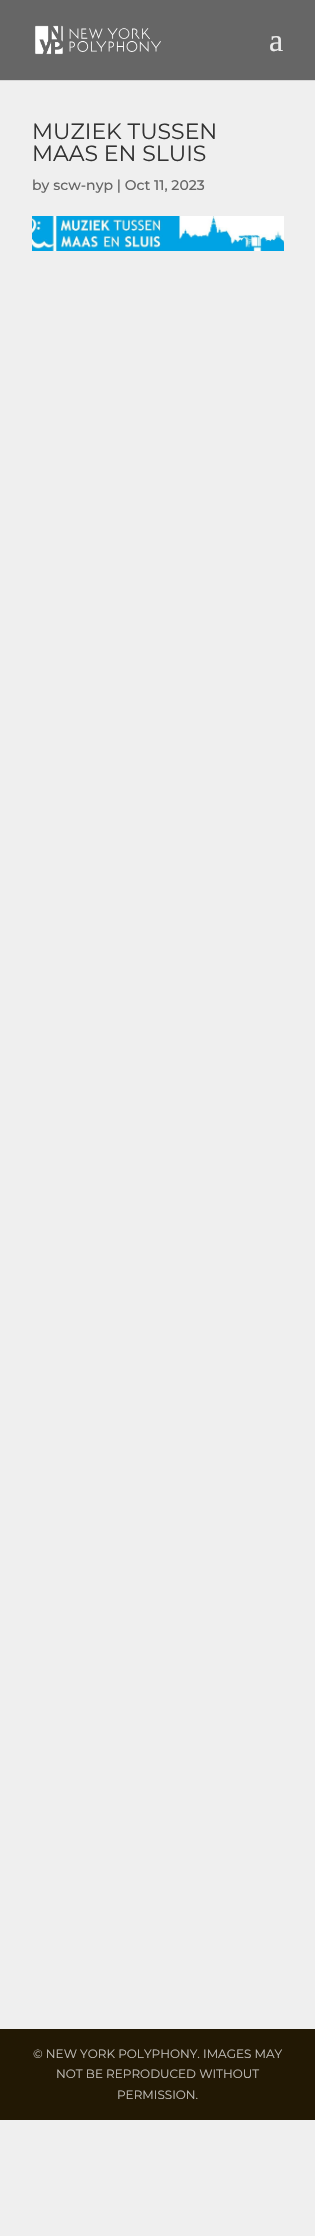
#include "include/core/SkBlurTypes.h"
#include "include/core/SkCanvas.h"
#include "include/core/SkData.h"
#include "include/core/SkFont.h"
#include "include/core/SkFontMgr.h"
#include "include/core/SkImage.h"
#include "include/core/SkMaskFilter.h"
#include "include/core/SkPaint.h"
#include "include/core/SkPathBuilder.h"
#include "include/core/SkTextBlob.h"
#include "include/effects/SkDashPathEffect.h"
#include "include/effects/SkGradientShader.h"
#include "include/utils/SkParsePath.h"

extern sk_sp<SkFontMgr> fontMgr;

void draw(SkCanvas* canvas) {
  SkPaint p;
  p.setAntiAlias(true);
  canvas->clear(SkColorSetRGB(239, 239, 239));
  p.setColor(SkColorSetRGB(215, 215, 215));
  canvas->drawRect(SkRect::MakeLTRB(0, 80, 315, 81), p);
  p.setColor(SkColorSetRGB(102, 102, 102));
  canvas->drawRect(SkRect::MakeLTRB(0, 0, 315, 80), p);
  canvas->drawImageRect(SkImages::DeferredFromEncodedData(SkData::MakeFromFileName("images/1.png")), SkRect::MakeLTRB(35, 25, 161, 55), SkSamplingOptions());
  canvas->drawImageRect(SkImages::DeferredFromEncodedData(SkData::MakeFromFileName("images/2.png")), SkRect::MakeLTRB(32, 216, 284, 251), SkSamplingOptions());
  p.setColor(SkColorSetRGB(34, 24, 4));
  canvas->drawRect(SkRect::MakeLTRB(0, 2029, 315, 2120), p);
  SkFont font1(fontMgr->matchFamilyStyle("Liberation Serif", SkFontStyle::Normal()), 32);
  font1.setSubpixel(true);
  p.setColor(SkColorSetRGB(235, 235, 235));
  canvas->drawString("a", 269, 51, font1, p);
  SkFont font2(fontMgr->matchFamilyStyle("Montserrat", SkFontStyle::Normal()), 22);
  font2.setSubpixel(true);
  p.setColor(SkColorSetRGB(51, 51, 51));
  canvas->drawString("MUZIEK TUSSEN", 32, 139, font2, p);
  canvas->drawString("MAAS EN SLUIS", 32, 161, font2, p);
  SkFont font3(fontMgr->matchFamilyStyle("Montserrat", SkFontStyle(500, SkFontStyle::kNormal_Width, SkFontStyle::kUpright_Slant)), 14);
  font3.setSubpixel(true);
  p.setColor(SkColorSetRGB(102, 102, 102));
  canvas->drawString("by scw-nyp | Oct 11, 2023", 32, 190, font3, p);
  SkFont font4(fontMgr->matchFamilyStyle("Montserrat", SkFontStyle::Normal()), 12);
  font4.setSubpixel(true);
  p.setColor(SkColorSetRGB(193, 190, 185));
  canvas->drawString("© NEW YORK POLYPHONY. IMAGES MAY", 33, 2058, font4, p);
  canvas->drawString("NOT BE REPRODUCED WITHOUT", 56, 2078, font4, p);
  canvas->drawString("PERMISSION.", 117, 2099, font4, p);
}
